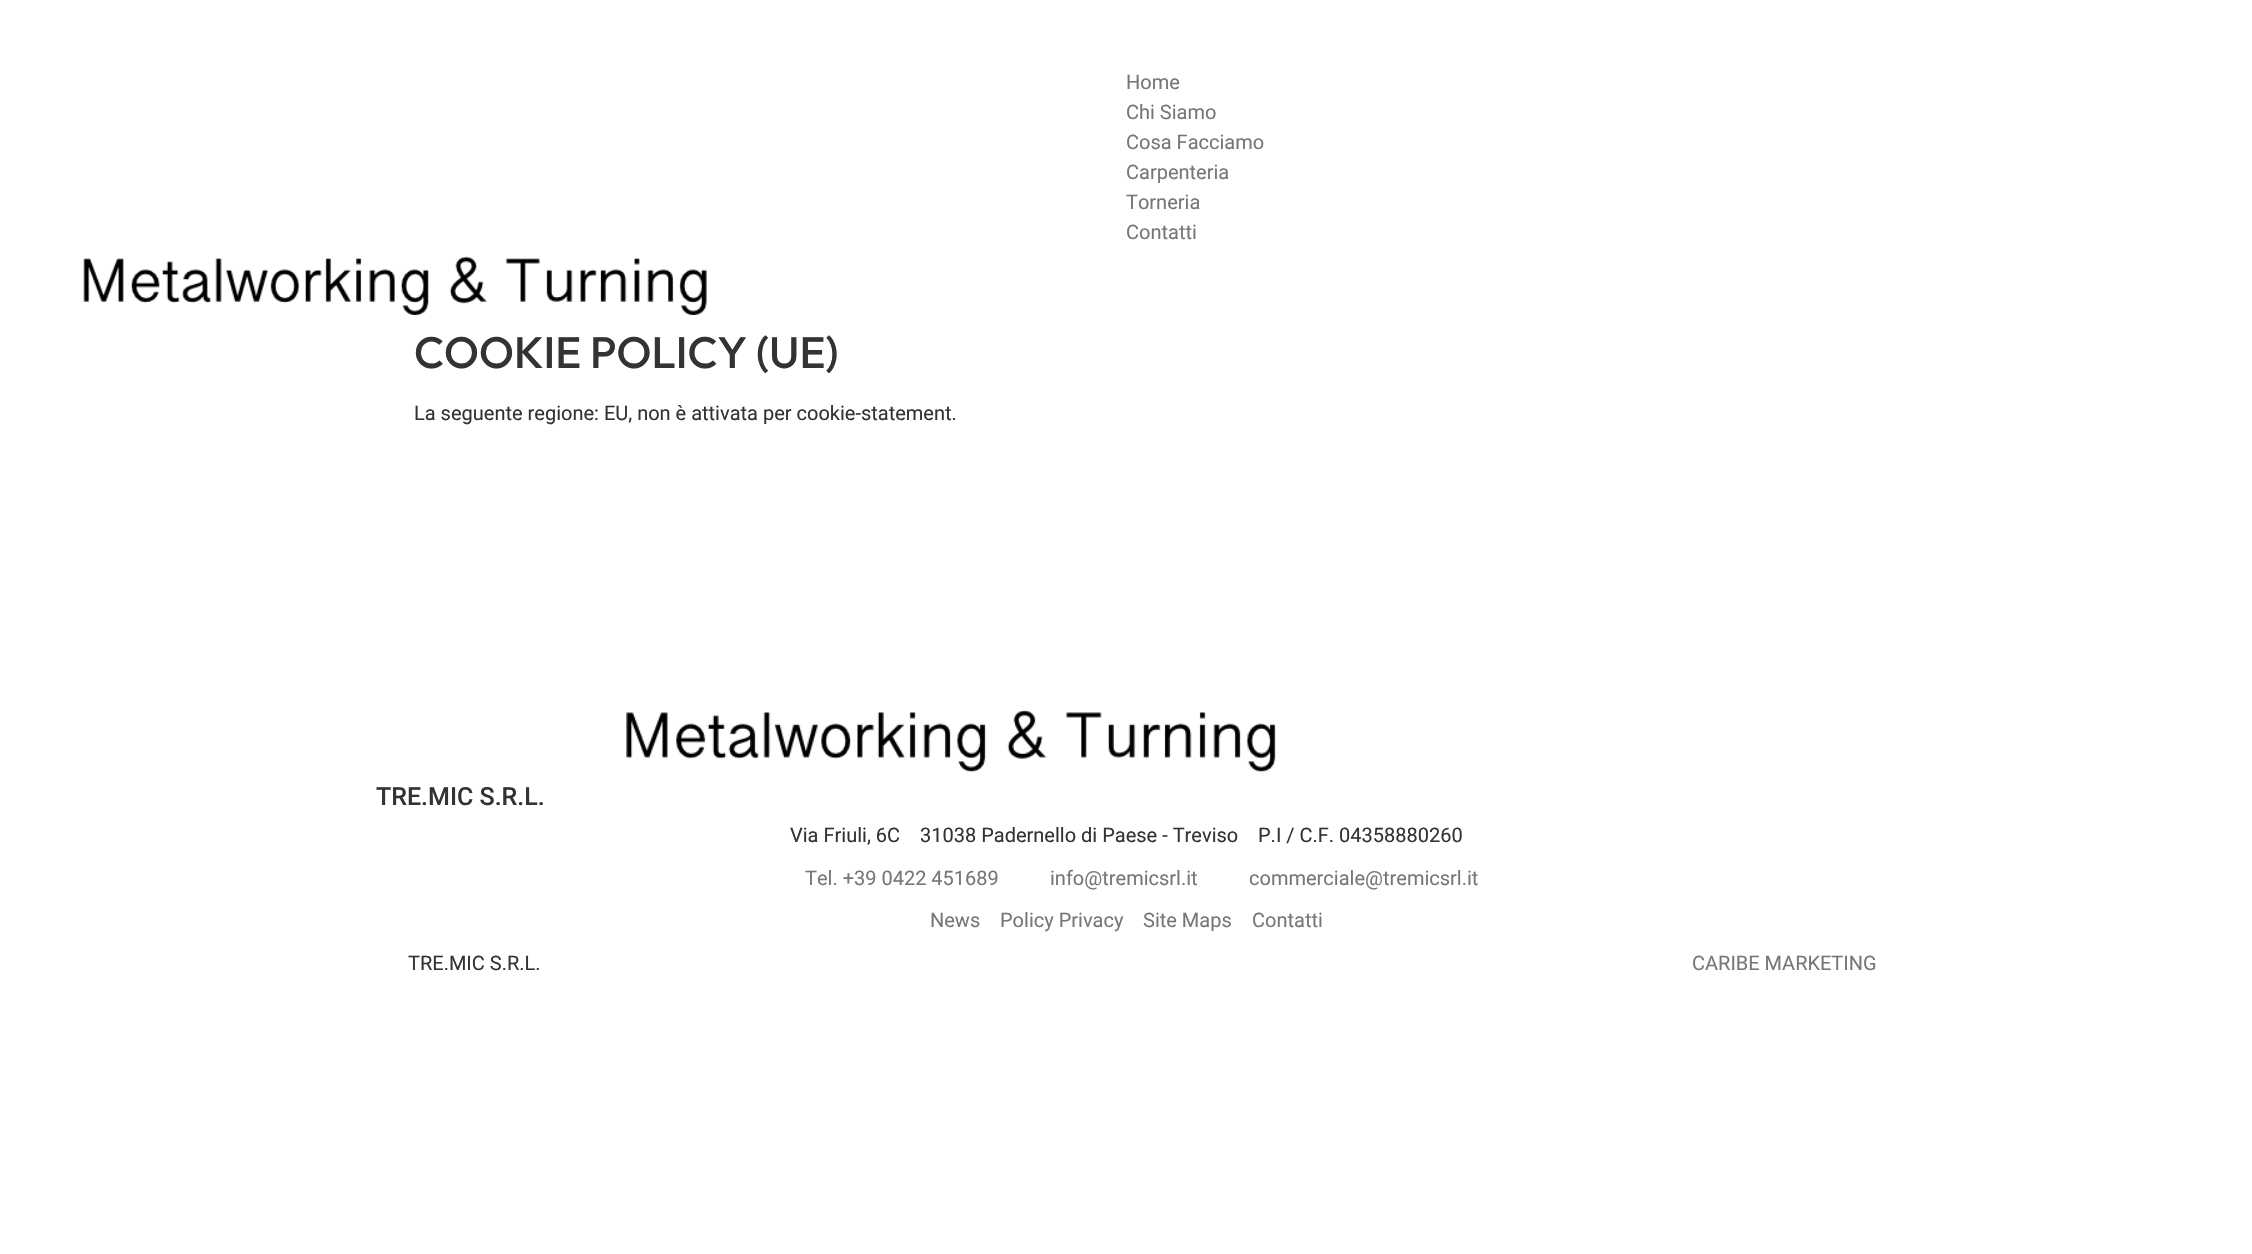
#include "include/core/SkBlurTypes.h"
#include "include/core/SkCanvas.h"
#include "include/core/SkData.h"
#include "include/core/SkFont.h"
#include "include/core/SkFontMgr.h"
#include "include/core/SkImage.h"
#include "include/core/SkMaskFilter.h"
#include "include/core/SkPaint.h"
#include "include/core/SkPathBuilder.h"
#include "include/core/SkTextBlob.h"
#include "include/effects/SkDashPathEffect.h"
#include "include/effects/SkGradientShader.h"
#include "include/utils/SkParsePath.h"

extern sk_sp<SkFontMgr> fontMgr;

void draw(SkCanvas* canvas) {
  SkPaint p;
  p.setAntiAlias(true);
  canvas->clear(SK_ColorWHITE);
  canvas->drawImageRect(SkImages::DeferredFromEncodedData(SkData::MakeFromFileName("images/1.png")), SkRect::MakeLTRB(83, 256, 707, 315), SkSamplingOptions());
  canvas->drawImageRect(SkImages::DeferredFromEncodedData(SkData::MakeFromFileName("images/2.png")), SkRect::MakeLTRB(626, 710, 1276, 772), SkSamplingOptions());
  SkFont font1(fontMgr->matchFamilyStyle("Roboto", SkFontStyle::Normal()), 20);
  font1.setSubpixel(true);
  p.setColor(SkColorSetRGB(119, 119, 119));
  canvas->drawString("Home", 1126, 89, font1, p);
  canvas->drawString("Chi Siamo", 1126, 119, font1, p);
  canvas->drawString("Cosa Facciamo", 1126, 149, font1, p);
  canvas->drawString("Carpenteria", 1126, 179, font1, p);
  canvas->drawString("Torneria", 1126, 209, font1, p);
  canvas->drawString("Contatti", 1126, 239, font1, p);
  SkFont font2(fontMgr->matchFamilyStyle("Outfit", SkFontStyle(500, SkFontStyle::kNormal_Width, SkFontStyle::kUpright_Slant)), 44);
  font2.setSubpixel(true);
  p.setColor(SkColorSetRGB(51, 51, 51));
  canvas->drawString("COOKIE POLICY (UE)", 414, 368, font2, p);
  canvas->drawString("La seguente regione: EU, non è attivata per cookie-statement.", 414, 420, font1, p);
  SkFont font3(fontMgr->matchFamilyStyle("Roboto", SkFontStyle(500, SkFontStyle::kNormal_Width, SkFontStyle::kUpright_Slant)), 25);
  font3.setSubpixel(true);
  canvas->drawString("TRE.MIC S.R.L.", 376, 805, font3, p);
  canvas->drawString("Via Friuli, 6C", 790, 842, font1, p);
  canvas->drawString("31038 Padernello di Paese - Treviso", 920, 842, font1, p);
  canvas->drawString("P.I / C.F. 04358880260", 1258, 842, font1, p);
  p.setColor(SkColorSetRGB(119, 119, 119));
  canvas->drawString("Tel. +39 0422 451689", 805, 885, font1, p);
  canvas->drawString("info@tremicsrl.it", 1050, 885, font1, p);
  canvas->drawString("commerciale@tremicsrl.it", 1249, 885, font1, p);
  canvas->drawString("News", 930, 927, font1, p);
  canvas->drawString("Policy Privacy", 1000, 927, font1, p);
  canvas->drawString("Site Maps", 1143, 927, font1, p);
  canvas->drawString("Contatti", 1252, 927, font1, p);
  p.setColor(SkColorSetRGB(51, 51, 51));
  canvas->drawString("TRE.MIC S.R.L.", 408, 970, font1, p);
  p.setColor(SkColorSetRGB(119, 119, 119));
  canvas->drawString("CARIBE MARKETING", 1692, 970, font1, p);
}
